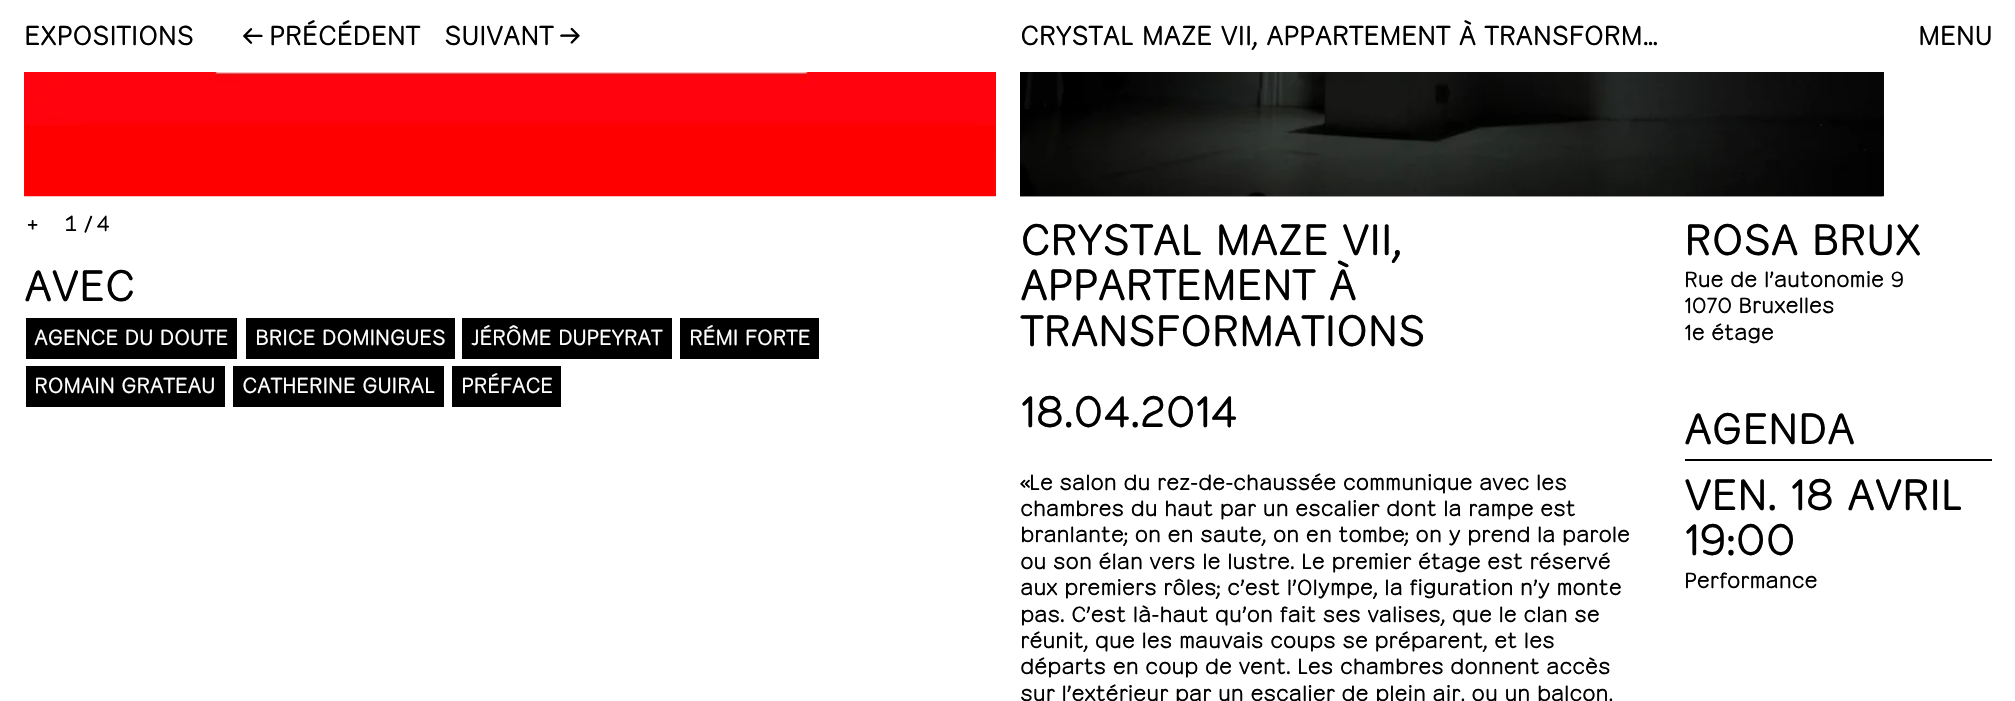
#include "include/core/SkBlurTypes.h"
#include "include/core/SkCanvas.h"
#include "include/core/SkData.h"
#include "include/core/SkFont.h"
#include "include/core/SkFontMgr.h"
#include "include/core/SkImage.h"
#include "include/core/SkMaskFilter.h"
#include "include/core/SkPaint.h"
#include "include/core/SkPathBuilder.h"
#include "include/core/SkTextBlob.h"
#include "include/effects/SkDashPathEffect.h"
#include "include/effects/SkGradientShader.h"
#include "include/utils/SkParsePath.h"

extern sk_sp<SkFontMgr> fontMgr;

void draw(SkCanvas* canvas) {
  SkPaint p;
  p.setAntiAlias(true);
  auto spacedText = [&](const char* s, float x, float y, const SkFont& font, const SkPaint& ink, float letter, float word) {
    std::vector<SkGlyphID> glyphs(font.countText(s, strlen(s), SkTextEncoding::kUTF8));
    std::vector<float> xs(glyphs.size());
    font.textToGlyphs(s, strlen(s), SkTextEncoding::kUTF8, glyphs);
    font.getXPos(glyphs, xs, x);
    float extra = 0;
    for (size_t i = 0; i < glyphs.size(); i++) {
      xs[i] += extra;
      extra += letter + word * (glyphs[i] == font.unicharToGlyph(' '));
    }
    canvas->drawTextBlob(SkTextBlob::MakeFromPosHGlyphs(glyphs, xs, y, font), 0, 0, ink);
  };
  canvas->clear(SK_ColorWHITE);
  canvas->drawImageRect(SkImages::DeferredFromEncodedData(SkData::MakeFromFileName("images/1.png")), SkRect::MakeLTRB(24, 72, 996, 197), SkSamplingOptions());
  canvas->drawImageRect(SkImages::DeferredFromEncodedData(SkData::MakeFromFileName("images/2.png")), SkRect::MakeLTRB(24, 72, 996, 195), SkSamplingOptions());
  canvas->drawImageRect(SkImages::DeferredFromEncodedData(SkData::MakeFromFileName("images/4.png")), SkRect::MakeLTRB(1020, 196, 1883, 197), SkSamplingOptions());
  canvas->drawImageRect(SkImages::DeferredFromEncodedData(SkData::MakeFromFileName("images/3.png")), SkRect::MakeLTRB(1020, 72, 1884, 197), SkSamplingOptions());
  p.setColor(SK_ColorBLACK);
  canvas->drawRect(SkRect::MakeLTRB(26, 318, 237, 359), p);
  canvas->drawRect(SkRect::MakeLTRB(246, 318, 455, 359), p);
  canvas->drawRect(SkRect::MakeLTRB(462, 318, 672, 359), p);
  canvas->drawRect(SkRect::MakeLTRB(680, 318, 819, 359), p);
  canvas->drawRect(SkRect::MakeLTRB(26, 366, 225, 407), p);
  canvas->drawRect(SkRect::MakeLTRB(233, 366, 444, 407), p);
  canvas->drawRect(SkRect::MakeLTRB(452, 366, 561, 407), p);
  canvas->drawRect(SkRect::MakeLTRB(1685, 459, 1992, 461), p);
  SkFont font1(fontMgr->matchFamilyStyle("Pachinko", SkFontStyle::Normal()), 30);
  font1.setSubpixel(true);
  spacedText("EXPOSITIONS", 24, 45, font1, p, -0.6f, 0);
  spacedText("←", 242, 45, font1, p, -0.6f, 0);
  spacedText("PRÉCÉDENT", 269, 45, font1, p, -0.6f, 0);
  spacedText("SUIVANT", 444, 45, font1, p, -0.6f, 0);
  spacedText("→", 559, 45, font1, p, -0.6f, 0);
  spacedText("CRYSTAL MAZE VII, APPARTEMENT À TRANSFORM…", 1020, 45, font1, p, -0.6f, 0);
  SkFont font2(fontMgr->matchFamilyStyle("Pachinko", SkFontStyle::Normal()), 24);
  font2.setSubpixel(true);
  canvas->drawString("+", 27, 232, font2, p);
  SkFont font3(fontMgr->matchFamilyStyle("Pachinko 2", SkFontStyle::Normal()), 24);
  font3.setSubpixel(true);
  spacedText("1", 64, 231, font3, p, -0.6f, 0);
  spacedText("/", 82, 231, font3, p, -0.6f, 0);
  spacedText("4", 96, 231, font3, p, -0.6f, 0);
  SkFont font4(fontMgr->matchFamilyStyle("Pachinko", SkFontStyle::Normal()), 48);
  font4.setSubpixel(true);
  spacedText("AVEC", 24, 301, font4, p, -0.9f, 0);
  p.setColor(SK_ColorWHITE);
  spacedText("AGENCE DU DOUTE", 34, 345, font2, p, -0.6f, 0);
  spacedText("BRICE DOMINGUES", 255, 345, font2, p, -0.6f, 0);
  spacedText("JÉRÔME DUPEYRAT", 471, 345, font2, p, -0.6f, 0);
  spacedText("RÉMI FORTE", 689, 345, font2, p, -0.6f, 0);
  spacedText("ROMAIN GRATEAU", 34, 393, font2, p, -0.6f, 0);
  spacedText("CATHERINE GUIRAL", 242, 393, font2, p, -0.6f, 0);
  spacedText("PRÉFACE", 461, 393, font2, p, -0.6f, 0);
  p.setColor(SK_ColorBLACK);
  spacedText("CRYSTAL MAZE VII,", 1020, 255, font4, p, -0.9f, 0);
  spacedText("APPARTEMENT À", 1020, 300, font4, p, -0.9f, 0);
  spacedText("TRANSFORMATIONS", 1020, 346, font4, p, -0.9f, 0);
  spacedText("18.04.2014", 1020, 427, font4, p, -0.9f, 0);
  spacedText("« Le salon du rez-de-chaussée communique avec les", 1020, 490, font2, p, -0.6f, 0);
  spacedText("chambres du haut par un escalier dont la rampe est", 1020, 516, font2, p, -0.6f, 0);
  spacedText("branlante ; on en saute, on en tombe ; on y prend la parole", 1020, 542, font2, p, -0.6f, 0);
  spacedText("ou son élan vers le lustre. Le premier étage est réservé", 1020, 569, font2, p, -0.6f, 0);
  spacedText("aux premiers rôles ; c’est l’Olympe, la figuration n’y monte", 1020, 595, font2, p, -0.6f, 0);
  spacedText("pas. C’est là-haut qu’on fait ses valises, que le clan se", 1020, 622, font2, p, -0.6f, 0);
  spacedText("réunit, que les mauvais coups se préparent, et les", 1020, 648, font2, p, -0.6f, 0);
  spacedText("départs en coup de vent. Les chambres donnent accès", 1020, 674, font2, p, -0.6f, 0);
  spacedText("sur l’extérieur par un escalier de plein air, ou un balcon,", 1020, 701, font2, p, -0.6f, 0);
  spacedText("ROSA BRUX", 1684, 255, font4, p, -0.9f, 0);
  spacedText("Rue de l’autonomie 9", 1684, 287, font2, p, -0.6f, 0);
  spacedText("1070 Bruxelles", 1684, 313, font2, p, -0.6f, 0);
  spacedText("1e étage", 1684, 340, font2, p, -0.6f, 0);
  spacedText("AGENDA", 1684, 444, font4, p, -0.9f, 0);
  spacedText("VEN. 18 AVRIL", 1684, 510, font4, p, -0.9f, 0);
  spacedText("19:00", 1684, 555, font4, p, -0.9f, 0);
  spacedText("Performance", 1684, 588, font2, p, -0.6f, 0);
  spacedText("MENU", 1918, 45, font1, p, -0.6f, 0);
}
